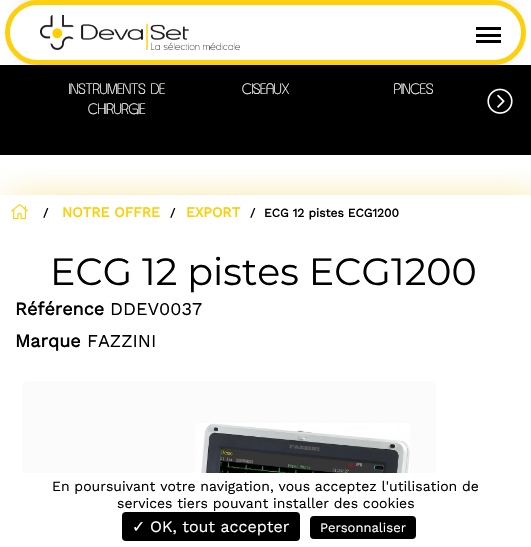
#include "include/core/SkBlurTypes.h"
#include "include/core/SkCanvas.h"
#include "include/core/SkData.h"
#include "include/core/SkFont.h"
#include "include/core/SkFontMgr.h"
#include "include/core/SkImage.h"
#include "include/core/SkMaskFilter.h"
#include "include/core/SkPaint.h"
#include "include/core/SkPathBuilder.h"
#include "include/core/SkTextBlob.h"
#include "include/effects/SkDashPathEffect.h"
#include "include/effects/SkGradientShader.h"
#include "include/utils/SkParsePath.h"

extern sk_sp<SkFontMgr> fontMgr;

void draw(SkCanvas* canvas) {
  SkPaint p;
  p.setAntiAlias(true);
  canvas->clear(SK_ColorWHITE);
  canvas->save();
  canvas->clipRect(SkRect::MakeLTRB(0, 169, 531, 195));
  p.setColor(SkColorSetARGB(140, 229, 186, 0));
  p.setMaskFilter(SkMaskFilter::MakeBlur(kNormal_SkBlurStyle, 20));
  canvas->drawRect(SkRect::MakeLTRB(10, 205, 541, 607), p);
  p.setMaskFilter(nullptr);
  canvas->restore();
  p.setColor(SkColorSetARGB(115, 0, 0, 0));
  p.setMaskFilter(SkMaskFilter::MakeBlur(kNormal_SkBlurStyle, 10));
  canvas->drawRoundRect(SkRect::MakeLTRB(25, 7, 506, 32), 12.5f, 12.5f, p);
  p.setMaskFilter(nullptr);
  p.setMaskFilter(SkMaskFilter::MakeBlur(kNormal_SkBlurStyle, 10));
  canvas->drawRoundRect(SkRect::MakeLTRB(25, 33, 506, 58), 12.5f, 12.5f, p);
  p.setMaskFilter(nullptr);
  p.setColor(SK_ColorWHITE);
  canvas->drawRoundRect(SkRect::MakeLTRB(7.5f, 2.5f, 523.5f, 62.5f), 30, 30, p);
  p.setStyle(SkPaint::kStroke_Style);
  p.setStrokeWidth(5);
  p.setColor(SkColorSetRGB(253, 208, 13));
  canvas->drawRoundRect(SkRect::MakeLTRB(7.5f, 2.5f, 523.5f, 62.5f), 30, 30, p);
  canvas->drawImageRect(SkImages::DeferredFromEncodedData(SkData::MakeFromFileName("images/1.png")), SkRect::MakeLTRB(40, 15, 240, 50), SkSamplingOptions());
  p.setStyle(SkPaint::kFill_Style);
  p.setColor(SK_ColorBLACK);
  canvas->drawRect(SkRect::MakeLTRB(476, 27, 501, 30), p);
  canvas->drawRect(SkRect::MakeLTRB(476, 34, 501, 37), p);
  canvas->drawRect(SkRect::MakeLTRB(476, 40, 501, 43), p);
  canvas->drawRect(SkRect::MakeLTRB(0, 65, 531, 155), p);
  canvas->drawImageRect(SkImages::DeferredFromEncodedData(SkData::MakeFromFileName("images/2.png")), SkRect::MakeLTRB(487, 88, 513, 114), SkSamplingOptions());
  canvas->drawImageRect(SkImages::DeferredFromEncodedData(SkData::MakeFromFileName("images/3.png")), SkRect::MakeLTRB(11, 204, 28, 220), SkSamplingOptions());
  p.setColor(SkColorSetRGB(251, 251, 251));
  canvas->drawRoundRect(SkRect::MakeLTRB(22, 381, 436, 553), 6, 6, p);
  canvas->drawImageRect(SkImages::DeferredFromEncodedData(SkData::MakeFromFileName("images/4.png")), SkRect::MakeLTRB(195, 423, 410, 473), SkSamplingOptions());
  p.setColor(SK_ColorWHITE);
  canvas->drawRect(SkRect::MakeLTRB(22, 543, 436, 547), p);
  canvas->drawRoundRect(SkRect::MakeLTRB(0, 473, 531, 547), 4, 4, p);
  p.setColor(SK_ColorBLACK);
  canvas->drawRoundRect(SkRect::MakeLTRB(122, 512, 300, 541), 4, 4, p);
  canvas->drawRoundRect(SkRect::MakeLTRB(310, 516, 416, 539), 4, 4, p);
  SkFont font1(fontMgr->matchFamilyStyle("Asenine", SkFontStyle::Normal()), 18);
  font1.setSubpixel(true);
  p.setColor(SK_ColorWHITE);
  canvas->drawString("INSTRUMENTS DE", 69, 94, font1, p);
  canvas->drawString("CHIRURGIE", 88, 114, font1, p);
  canvas->drawString("CISEAUX", 242, 94, font1, p);
  canvas->drawString("PINCES", 394, 94, font1, p);
  SkFont font2(fontMgr->matchFamilyStyle("Work Sans", SkFontStyle::Bold()), 12);
  font2.setSubpixel(true);
  p.setColor(SK_ColorBLACK);
  canvas->drawString("/", 43, 217, font2, p);
  SkFont font3(fontMgr->matchFamilyStyle("Work Sans", SkFontStyle::Bold()), 14);
  font3.setSubpixel(true);
  p.setColor(SkColorSetRGB(253, 206, 0));
  canvas->drawString("NOTRE OFFRE", 62, 217, font3, p);
  p.setColor(SK_ColorBLACK);
  canvas->drawString("/", 170, 217, font2, p);
  p.setColor(SkColorSetRGB(253, 206, 0));
  canvas->drawString("EXPORT", 186, 217, font3, p);
  p.setColor(SK_ColorBLACK);
  canvas->drawString("/", 250, 217, font2, p);
  canvas->drawString("ECG 12 pistes ECG1200", 264, 217, font2, p);
  SkFont font4(fontMgr->matchFamilyStyle("Montserrat", SkFontStyle::Normal()), 38);
  font4.setSubpixel(true);
  canvas->drawString("ECG 12 pistes ECG1200", 50, 285, font4, p);
  SkFont font5(fontMgr->matchFamilyStyle("Work Sans", SkFontStyle::Bold()), 18);
  font5.setSubpixel(true);
  canvas->drawString("Référence", 15, 315, font5, p);
  SkFont font6(fontMgr->matchFamilyStyle("Work Sans", SkFontStyle::Normal()), 18);
  font6.setSubpixel(true);
  canvas->drawString("DDEV0037", 110, 315, font6, p);
  canvas->drawString("Marque", 15, 347, font5, p);
  canvas->drawString("FAZZINI", 87, 347, font6, p);
  SkFont font7(fontMgr->matchFamilyStyle("Work Sans", SkFontStyle::Normal()), 14);
  font7.setSubpixel(true);
  canvas->drawString("En poursuivant votre navigation, vous acceptez l'utilisation de", 52, 491, font7, p);
  canvas->drawString("services tiers pouvant installer des cookies", 117, 508, font7, p);
  SkFont font8(fontMgr->matchFamilyStyle("DejaVu Sans", SkFontStyle::Normal()), 16);
  font8.setSubpixel(true);
  p.setColor(SK_ColorWHITE);
  canvas->drawString("✓", 132, 532, font8, p);
  SkFont font9(fontMgr->matchFamilyStyle("Work Sans", SkFontStyle::Normal()), 16);
  font9.setSubpixel(true);
  canvas->drawString("OK, tout accepter", 150, 532, font9, p);
  SkFont font10(fontMgr->matchFamilyStyle("Work Sans", SkFontStyle::Normal()), 13);
  font10.setSubpixel(true);
  canvas->drawString("Personnaliser", 320, 532, font10, p);
}
